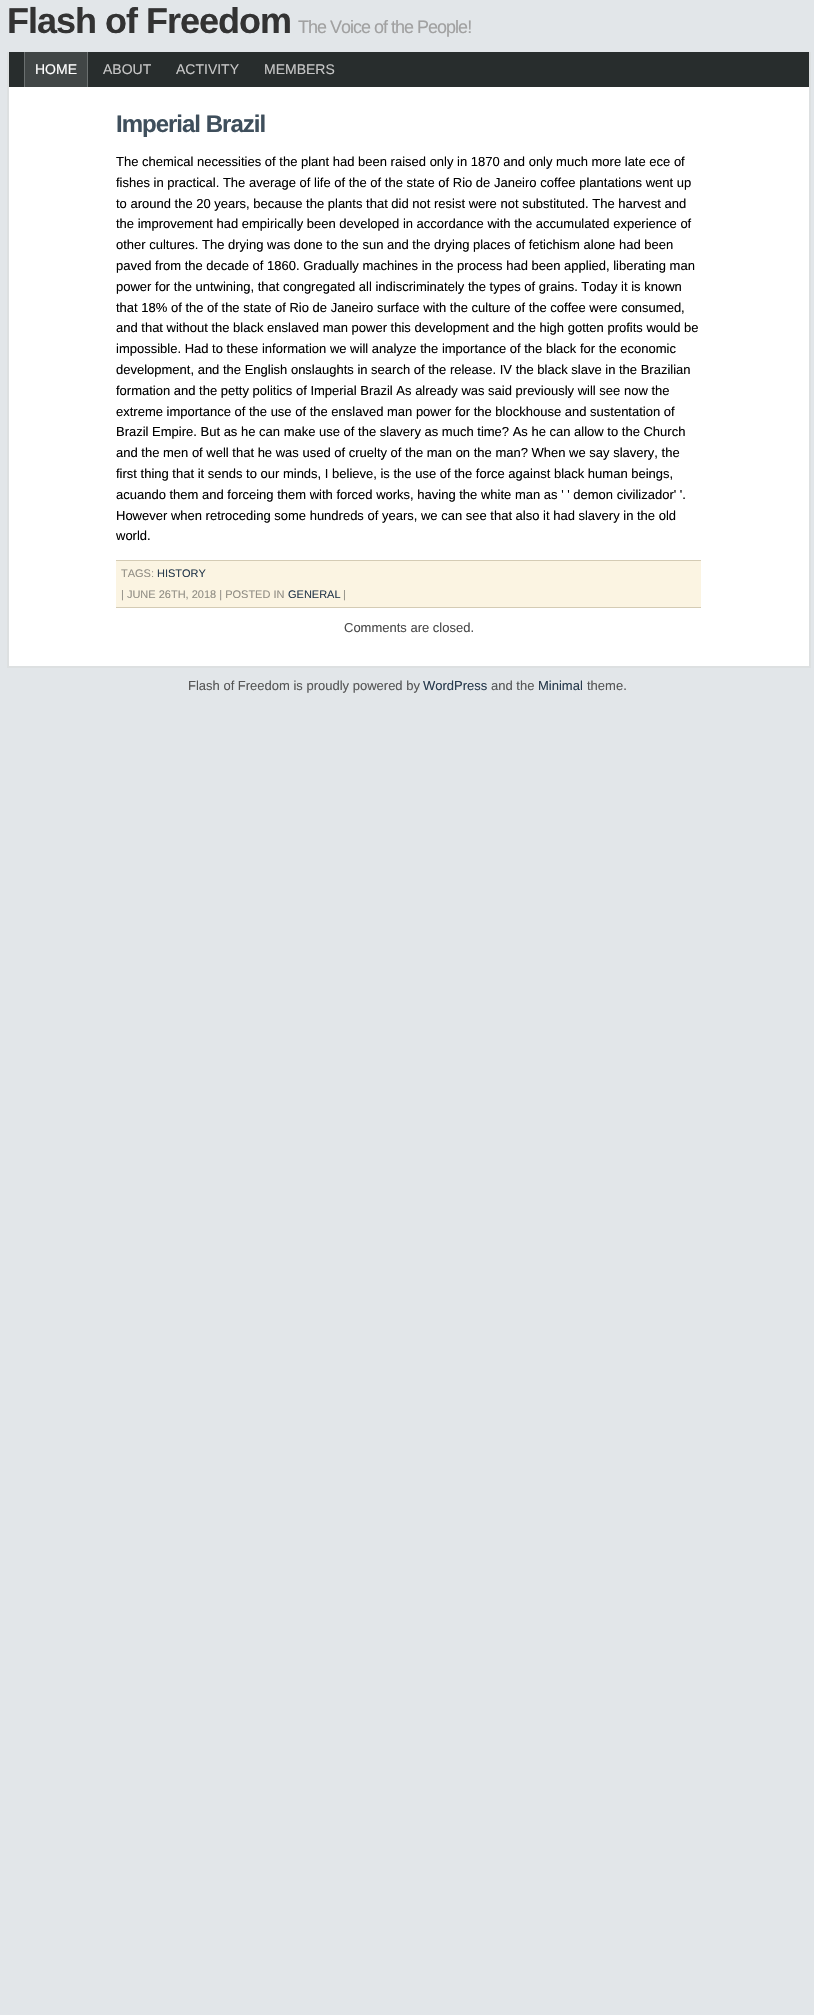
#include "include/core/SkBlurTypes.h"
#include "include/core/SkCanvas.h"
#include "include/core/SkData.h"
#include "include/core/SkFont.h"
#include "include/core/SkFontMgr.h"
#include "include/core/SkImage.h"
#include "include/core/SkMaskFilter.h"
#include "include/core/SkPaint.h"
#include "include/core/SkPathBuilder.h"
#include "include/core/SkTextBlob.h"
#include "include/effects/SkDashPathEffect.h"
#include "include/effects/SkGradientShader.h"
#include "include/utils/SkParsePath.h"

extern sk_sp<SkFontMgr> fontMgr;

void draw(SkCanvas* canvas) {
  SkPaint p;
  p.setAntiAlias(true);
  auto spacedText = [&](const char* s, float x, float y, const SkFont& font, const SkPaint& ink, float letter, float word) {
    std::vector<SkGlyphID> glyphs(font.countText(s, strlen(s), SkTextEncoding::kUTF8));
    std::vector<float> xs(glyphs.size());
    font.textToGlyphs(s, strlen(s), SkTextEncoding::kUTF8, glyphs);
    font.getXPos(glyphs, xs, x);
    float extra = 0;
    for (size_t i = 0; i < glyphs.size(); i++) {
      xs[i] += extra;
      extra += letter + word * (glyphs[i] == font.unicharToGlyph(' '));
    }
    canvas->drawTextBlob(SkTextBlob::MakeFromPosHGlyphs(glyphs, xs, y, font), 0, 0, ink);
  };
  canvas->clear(SkColorSetRGB(226, 230, 233));
  p.setColor(SK_ColorWHITE);
  canvas->drawRect(SkRect::MakeLTRB(9, 87, 809, 666), p);
  p.setColor(SkColorSetRGB(221, 224, 225));
  canvas->drawRect(SkRect::MakeLTRB(809, 52, 811, 668), p);
  canvas->drawRect(SkRect::MakeLTRB(7, 666, 811, 668), p);
  canvas->drawRect(SkRect::MakeLTRB(7, 52, 9, 668), p);
  p.setColor(SkColorSetRGB(40, 45, 45));
  canvas->drawRect(SkRect::MakeLTRB(9, 52, 809, 87), p);
  p.setColor(SkColorSetRGB(65, 70, 70));
  canvas->drawRect(SkRect::MakeLTRB(25, 52, 87, 87), p);
  p.setColor(SkColorSetRGB(107, 112, 112));
  canvas->drawRect(SkRect::MakeLTRB(87, 52, 88, 87), p);
  canvas->drawRect(SkRect::MakeLTRB(24, 52, 25, 87), p);
  p.setColor(SkColorSetRGB(251, 244, 226));
  canvas->drawRect(SkRect::MakeLTRB(116, 561, 701, 607), p);
  p.setColor(SkColorSetRGB(212, 203, 180));
  canvas->drawRect(SkRect::MakeLTRB(116, 560, 701, 561), p);
  canvas->drawRect(SkRect::MakeLTRB(116, 607, 701, 608), p);
  SkFont font1(fontMgr->matchFamilyStyle("Liberation Sans", SkFontStyle::Bold()), 36);
  font1.setSubpixel(true);
  p.setColor(SkColorSetRGB(51, 51, 51));
  spacedText("Flash of Freedom", 7, 33, font1, p, -1, 0);
  SkFont font2(fontMgr->matchFamilyStyle("Liberation Sans", SkFontStyle::Normal()), 18);
  font2.setSubpixel(true);
  p.setColor(SkColorSetRGB(161, 161, 161));
  spacedText("The Voice of the People!", 298, 33, font2, p, -1, 0);
  SkFont font3(fontMgr->matchFamilyStyle("Liberation Sans", SkFontStyle::Normal()), 14);
  font3.setSubpixel(true);
  p.setColor(SK_ColorWHITE);
  canvas->drawString("HOME", 35, 74, font3, p);
  p.setColor(SkColorSetRGB(198, 198, 198));
  canvas->drawString("ABOUT", 103, 74, font3, p);
  canvas->drawString("ACTIVITY", 176, 74, font3, p);
  canvas->drawString("MEMBERS", 264, 74, font3, p);
  SkFont font4(fontMgr->matchFamilyStyle("Liberation Sans", SkFontStyle::Bold()), 24);
  font4.setSubpixel(true);
  p.setColor(SkColorSetRGB(63, 79, 92));
  spacedText("Imperial Brazil", 116, 132, font4, p, -1, 0);
  SkFont font5(fontMgr->matchFamilyStyle("Liberation Sans", SkFontStyle::Normal()), 13);
  font5.setSubpixel(true);
  p.setColor(SK_ColorBLACK);
  canvas->drawString("The chemical necessities of the plant had been raised only in 1870 and only much more late ece of", 116, 166, font5, p);
  canvas->drawString("fishes in practical. The average of life of the of the state of Rio de Janeiro coffee plantations went up", 116, 187, font5, p);
  canvas->drawString("to around the 20 years, because the plants that did not resist were not substituted. The harvest and", 116, 208, font5, p);
  canvas->drawString("the improvement had empirically been developed in accordance with the accumulated experience of", 116, 228, font5, p);
  canvas->drawString("other cultures. The drying was done to the sun and the drying places of fetichism alone had been", 116, 249, font5, p);
  canvas->drawString("paved from the decade of 1860. Gradually machines in the process had been applied, liberating man", 116, 270, font5, p);
  canvas->drawString("power for the untwining, that congregated all indiscriminately the types of grains. Today it is known", 116, 291, font5, p);
  canvas->drawString("that 18% of the of the state of Rio de Janeiro surface with the culture of the coffee were consumed,", 116, 312, font5, p);
  canvas->drawString("and that without the black enslaved man power this development and the high gotten profits would be", 116, 332, font5, p);
  canvas->drawString("impossible. Had to these information we will analyze the importance of the black for the economic", 116, 353, font5, p);
  canvas->drawString("development, and the English onslaughts in search of the release. IV the black slave in the Brazilian", 116, 374, font5, p);
  canvas->drawString("formation and the petty politics of Imperial Brazil As already was said previously will see now the", 116, 395, font5, p);
  canvas->drawString("extreme importance of the use of the enslaved man power for the blockhouse and sustentation of", 116, 416, font5, p);
  canvas->drawString("Brazil Empire. But as he can make use of the slavery as much time? As he can allow to the Church", 116, 436, font5, p);
  canvas->drawString("and the men of well that he was used of cruelty of the man on the man? When we say slavery, the", 116, 457, font5, p);
  canvas->drawString("first thing that it sends to our minds, I believe, is the use of the force against black human beings,", 116, 478, font5, p);
  canvas->drawString("acuando them and forceing them with forced works, having the white man as ' ' demon civilizador' '.", 116, 499, font5, p);
  canvas->drawString("However when retroceding some hundreds of years, we can see that also it had slavery in the old", 116, 520, font5, p);
  canvas->drawString("world.", 116, 540, font5, p);
  SkFont font6(fontMgr->matchFamilyStyle("Liberation Sans", SkFontStyle::Normal()), 11);
  font6.setSubpixel(true);
  p.setColor(SkColorSetRGB(145, 142, 133));
  canvas->drawString("TAGS:", 121, 577, font6, p);
  p.setColor(SkColorSetRGB(39, 58, 77));
  canvas->drawString("HISTORY", 157, 577, font6, p);
  p.setColor(SkColorSetRGB(145, 142, 133));
  canvas->drawString("| JUNE 26TH, 2018 | POSTED IN", 121, 598, font6, p);
  p.setColor(SkColorSetRGB(39, 58, 77));
  canvas->drawString("GENERAL", 288, 598, font6, p);
  p.setColor(SkColorSetRGB(145, 142, 133));
  canvas->drawString("|", 343, 598, font6, p);
  p.setColor(SkColorSetRGB(74, 74, 74));
  canvas->drawString("Comments are closed.", 344, 632, font5, p);
  p.setColor(SkColorSetRGB(85, 85, 85));
  canvas->drawString("Flash of Freedom is proudly powered by", 188, 690, font5, p);
  p.setColor(SkColorSetRGB(39, 58, 77));
  canvas->drawString("WordPress", 423, 690, font5, p);
  p.setColor(SkColorSetRGB(85, 85, 85));
  canvas->drawString("and the", 491, 690, font5, p);
  p.setColor(SkColorSetRGB(39, 58, 77));
  canvas->drawString("Minimal", 538, 690, font5, p);
  p.setColor(SkColorSetRGB(85, 85, 85));
  canvas->drawString("theme.", 587, 690, font5, p);
}
